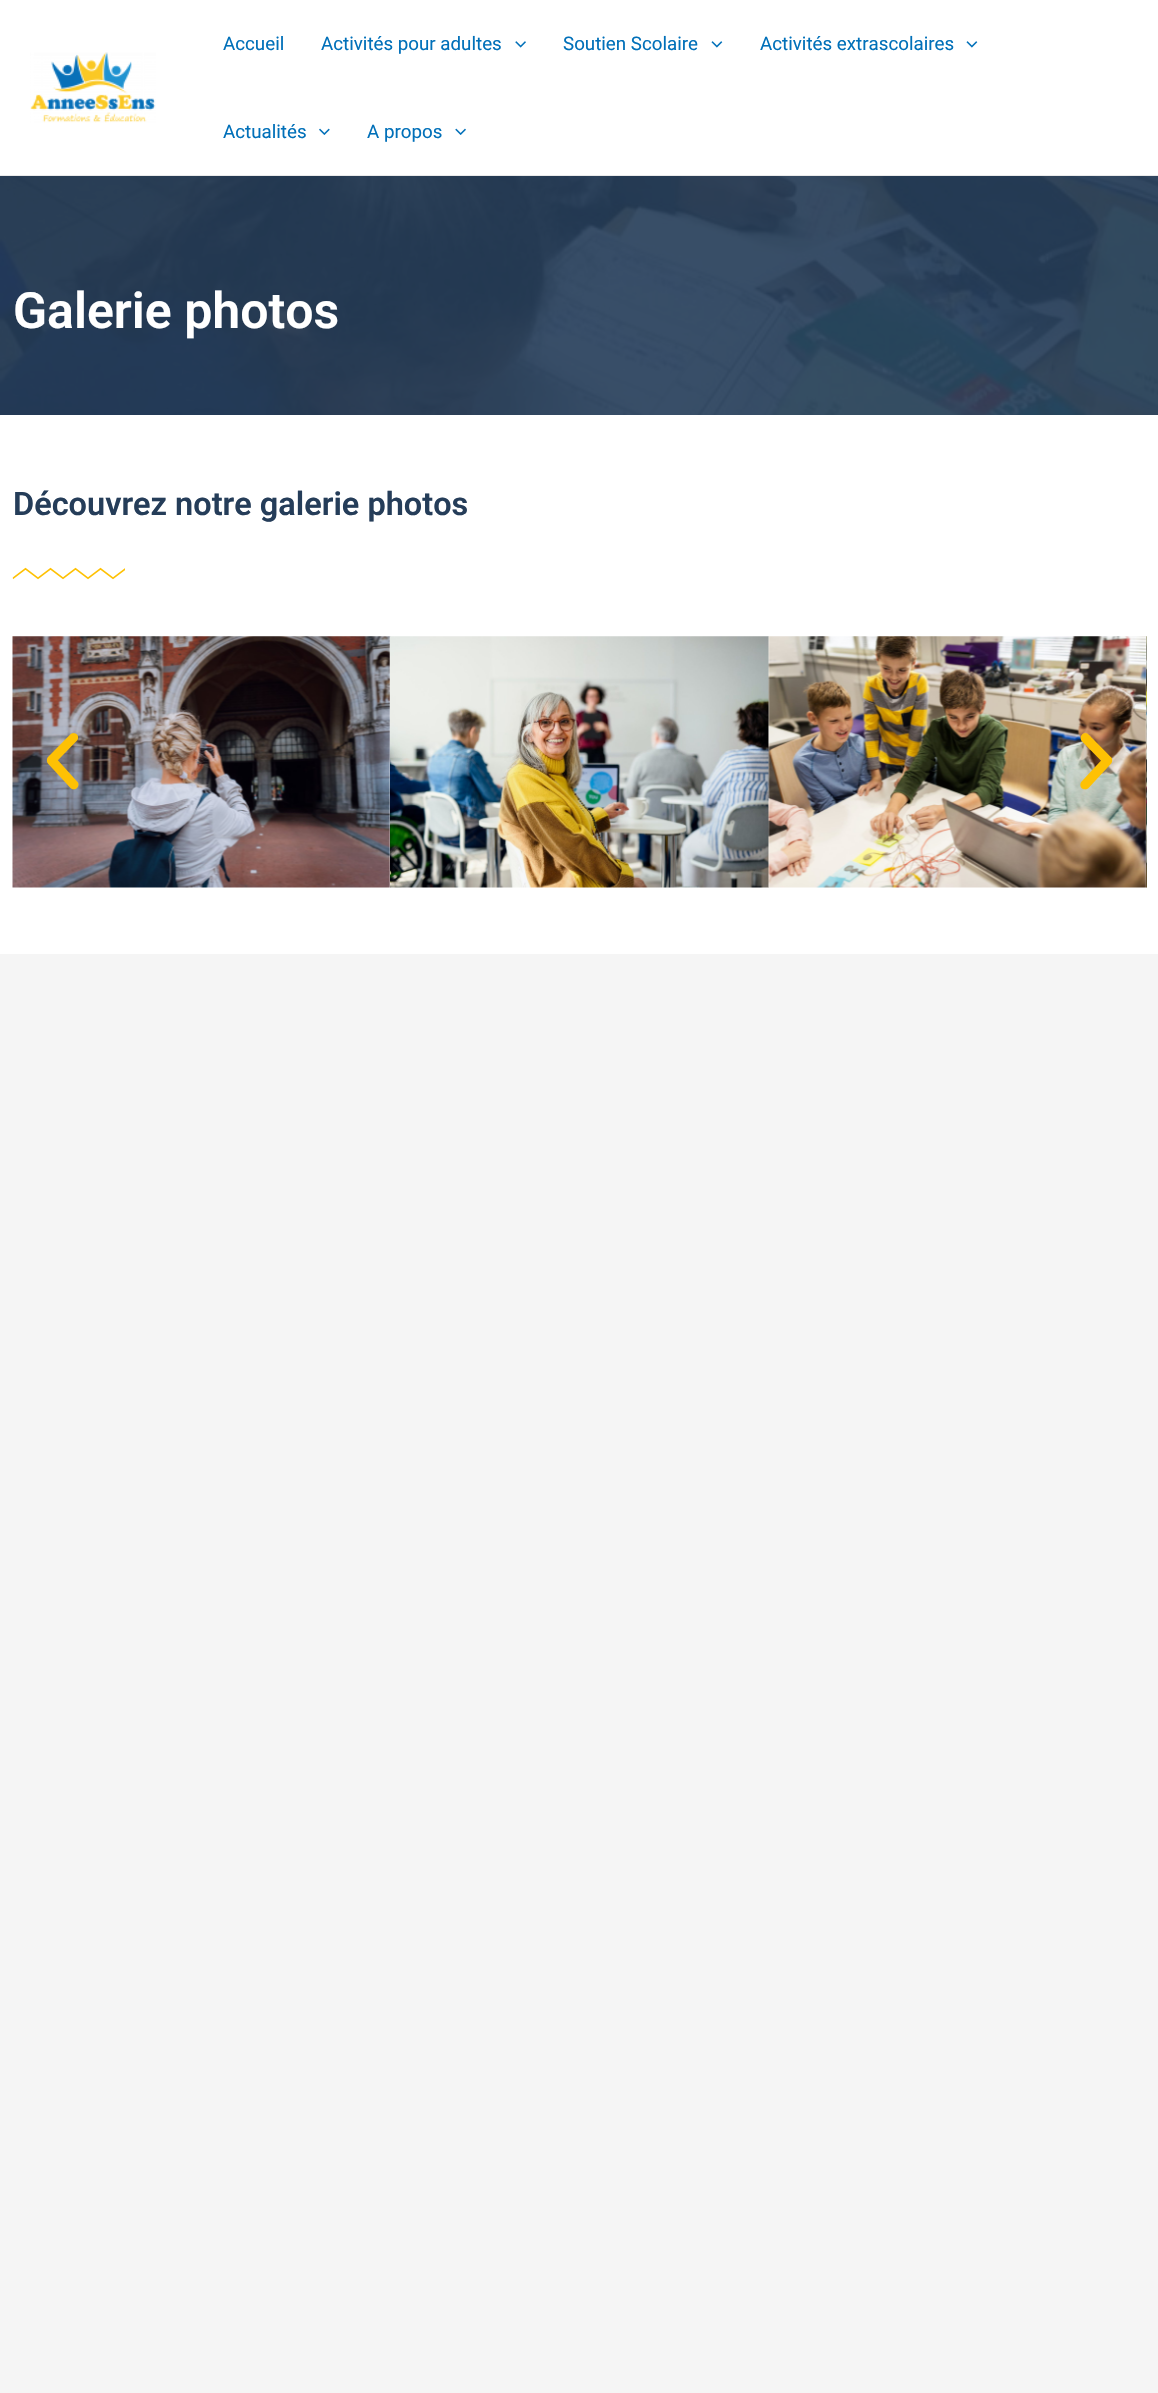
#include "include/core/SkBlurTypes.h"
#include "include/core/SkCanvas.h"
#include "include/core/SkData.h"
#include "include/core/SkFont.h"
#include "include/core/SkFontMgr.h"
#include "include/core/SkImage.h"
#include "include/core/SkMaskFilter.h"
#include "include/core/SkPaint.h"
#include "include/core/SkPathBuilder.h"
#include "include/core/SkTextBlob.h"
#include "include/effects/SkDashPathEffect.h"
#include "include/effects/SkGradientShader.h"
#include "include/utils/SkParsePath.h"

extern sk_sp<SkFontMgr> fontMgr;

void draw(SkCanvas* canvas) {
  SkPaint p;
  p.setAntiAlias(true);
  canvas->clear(SkColorSetRGB(245, 245, 245));
  p.setColor(SK_ColorWHITE);
  canvas->drawRect(SkRect::MakeLTRB(0, 0, 1158, 175), p);
  p.setColor(SkColorSetRGB(234, 234, 234));
  canvas->drawRect(SkRect::MakeLTRB(0, 175, 1158, 176), p);
  canvas->drawImageRect(SkImages::DeferredFromEncodedData(SkData::MakeFromFileName("images/1.png")), SkRect::MakeLTRB(30, 52, 156, 123), SkSamplingOptions());
  canvas->drawImageRect(SkImages::DeferredFromEncodedData(SkData::MakeFromFileName("images/2.png")), SkRect::MakeLTRB(515, 41, 526, 48), SkSamplingOptions());
  canvas->drawImageRect(SkImages::DeferredFromEncodedData(SkData::MakeFromFileName("images/3.png")), SkRect::MakeLTRB(711, 41, 723, 48), SkSamplingOptions());
  canvas->drawImageRect(SkImages::DeferredFromEncodedData(SkData::MakeFromFileName("images/3.png")), SkRect::MakeLTRB(966, 41, 978, 48), SkSamplingOptions());
  canvas->drawImageRect(SkImages::DeferredFromEncodedData(SkData::MakeFromFileName("images/4.png")), SkRect::MakeLTRB(319, 128, 330, 135), SkSamplingOptions());
  canvas->drawImageRect(SkImages::DeferredFromEncodedData(SkData::MakeFromFileName("images/5.png")), SkRect::MakeLTRB(455, 128, 466, 135), SkSamplingOptions());
  canvas->drawImageRect(SkImages::DeferredFromEncodedData(SkData::MakeFromFileName("images/6.png")), SkRect::MakeLTRB(0, 176, 1158, 415), SkSamplingOptions());
  p.setColor(SK_ColorWHITE);
  canvas->drawPath(SkPathBuilder().moveTo(1, 415).lineTo(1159, 415).lineTo(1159, 954).lineTo(0, 954).lineTo(0, 416).cubicTo(0, 415.5f, 0.5f, 415, 1, 415).close().detach(), p);
  canvas->drawImageRect(SkImages::DeferredFromEncodedData(SkData::MakeFromFileName("images/7.png")), SkRect::MakeLTRB(12, 567, 125, 580), SkSamplingOptions());
  canvas->drawImageRect(SkImages::DeferredFromEncodedData(SkData::MakeFromFileName("images/8.png")), SkRect::MakeLTRB(12, 636, 391, 888), SkSamplingOptions());
  canvas->drawImageRect(SkImages::DeferredFromEncodedData(SkData::MakeFromFileName("images/9.png")), SkRect::MakeLTRB(390, 636, 769, 888), SkSamplingOptions());
  canvas->drawImageRect(SkImages::DeferredFromEncodedData(SkData::MakeFromFileName("images/10.png")), SkRect::MakeLTRB(768, 636, 1147, 888), SkSamplingOptions());
  canvas->drawImageRect(SkImages::DeferredFromEncodedData(SkData::MakeFromFileName("images/11.png")), SkRect::MakeLTRB(1146, 636, 1147, 888), SkSamplingOptions());
  canvas->drawImageRect(SkImages::DeferredFromEncodedData(SkData::MakeFromFileName("images/12.png")), SkRect::MakeLTRB(46, 733, 79, 790), SkSamplingOptions());
  canvas->drawImageRect(SkImages::DeferredFromEncodedData(SkData::MakeFromFileName("images/13.png")), SkRect::MakeLTRB(1080, 733, 1113, 790), SkSamplingOptions());
  SkFont font1(fontMgr->matchFamilyStyle("Roboto", SkFontStyle::Normal()), 18.75f);
  font1.setSubpixel(true);
  p.setColor(SkColorSetRGB(1, 112, 185));
  canvas->drawString("Accueil", 223, 50, font1, p);
  canvas->drawString("Activités pour adultes", 321, 50, font1, p);
  canvas->drawString("Soutien Scolaire", 563, 50, font1, p);
  canvas->drawString("Activités extrascolaires", 760, 50, font1, p);
  canvas->drawString("Actualités", 223, 138, font1, p);
  canvas->drawString("A propos", 367, 138, font1, p);
  SkFont font2(fontMgr->matchFamilyStyle("Roboto", SkFontStyle(600, SkFontStyle::kNormal_Width, SkFontStyle::kUpright_Slant)), 50);
  font2.setSubpixel(true);
  p.setColor(SK_ColorWHITE);
  canvas->drawString("Galerie photos", 13, 328, font2, p);
  SkFont font3(fontMgr->matchFamilyStyle("Roboto", SkFontStyle(600, SkFontStyle::kNormal_Width, SkFontStyle::kUpright_Slant)), 32.5f);
  font3.setSubpixel(true);
  p.setColor(SkColorSetRGB(37, 61, 89));
  canvas->drawString("Découvrez notre galerie photos", 13, 515, font3, p);
}
